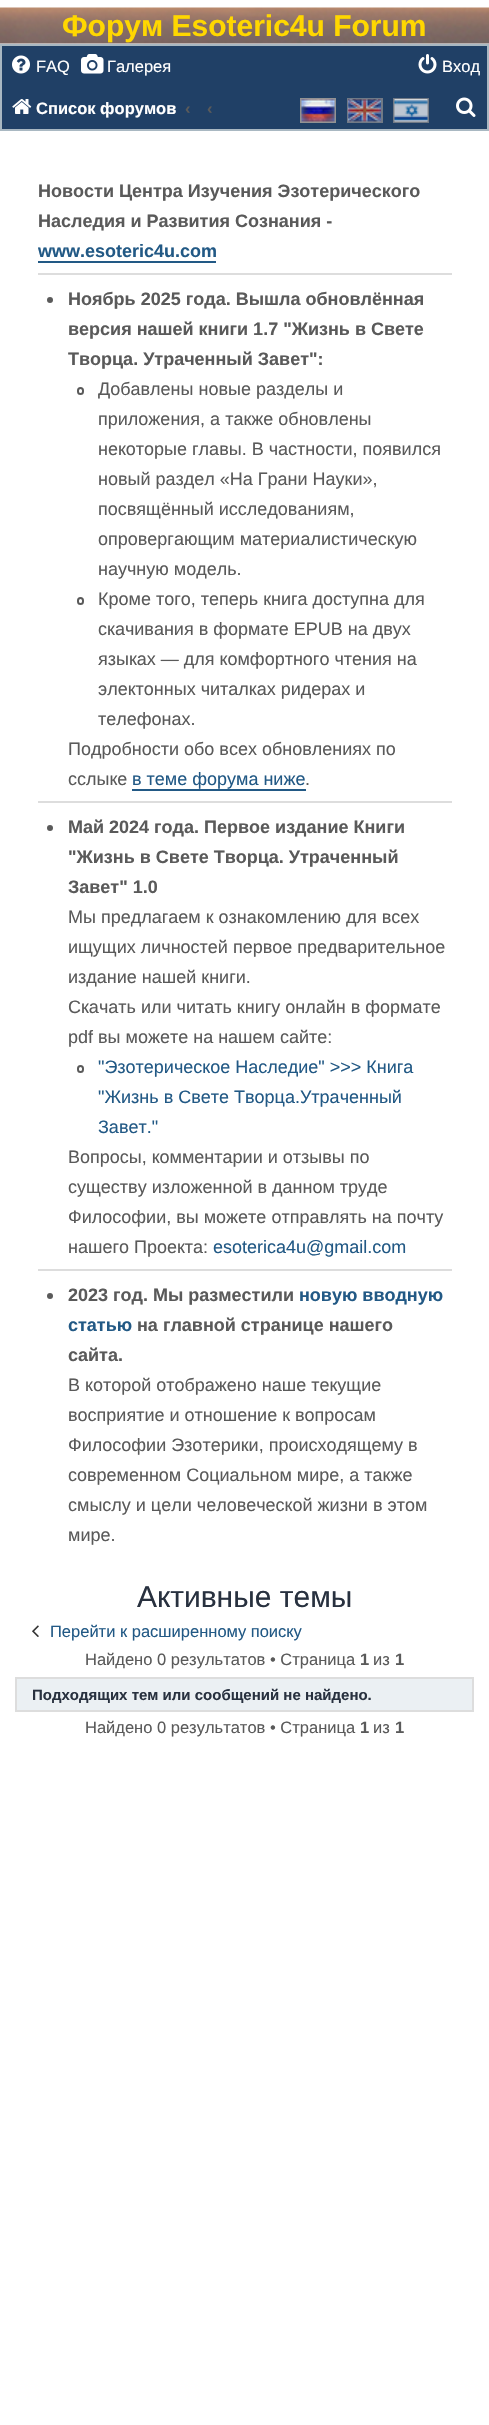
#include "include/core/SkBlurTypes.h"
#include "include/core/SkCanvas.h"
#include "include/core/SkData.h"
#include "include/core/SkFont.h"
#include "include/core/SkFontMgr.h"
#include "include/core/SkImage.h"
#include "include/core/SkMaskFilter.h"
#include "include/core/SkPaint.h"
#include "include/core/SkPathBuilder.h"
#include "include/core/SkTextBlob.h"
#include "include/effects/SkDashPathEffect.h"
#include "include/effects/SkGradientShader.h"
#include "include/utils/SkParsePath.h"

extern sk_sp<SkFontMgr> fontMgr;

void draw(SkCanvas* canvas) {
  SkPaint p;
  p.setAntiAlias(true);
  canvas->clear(SK_ColorWHITE);
  canvas->drawImageRect(SkImages::DeferredFromEncodedData(SkData::MakeFromFileName("images/1.png")), SkRect::MakeLTRB(0, 7, 489, 44), SkSamplingOptions());
  p.setColor(SkColorSetRGB(32, 64, 102));
  canvas->drawRect(SkRect::MakeLTRB(1, 45, 488, 130), p);
  p.setStyle(SkPaint::kStroke_Style);
  p.setStrokeWidth(2);
  p.setColor(SkColorSetRGB(169, 184, 194));
  canvas->drawRect(SkRect::MakeLTRB(1, 45, 488, 130), p);
  canvas->drawImageRect(SkImages::DeferredFromEncodedData(SkData::MakeFromFileName("images/2.png")), SkRect::MakeLTRB(12, 55, 30, 74), SkSamplingOptions());
  canvas->drawImageRect(SkImages::DeferredFromEncodedData(SkData::MakeFromFileName("images/3.png")), SkRect::MakeLTRB(81, 54, 104, 74), SkSamplingOptions());
  canvas->drawImageRect(SkImages::DeferredFromEncodedData(SkData::MakeFromFileName("images/4.png")), SkRect::MakeLTRB(418, 54, 437, 74), SkSamplingOptions());
  canvas->drawImageRect(SkImages::DeferredFromEncodedData(SkData::MakeFromFileName("images/5.png")), SkRect::MakeLTRB(12, 99, 32, 114), SkSamplingOptions());
  p.setColor(SkColorSetRGB(147, 147, 147));
  canvas->drawRect(SkRect::MakeLTRB(301, 99, 335, 122), p);
  p.setColor(SkColorSetRGB(113, 122, 134));
  canvas->drawRect(SkRect::MakeLTRB(348, 99, 382, 122), p);
  canvas->drawRect(SkRect::MakeLTRB(394, 99, 428, 122), p);
  canvas->drawImageRect(SkImages::DeferredFromEncodedData(SkData::MakeFromFileName("images/6.png")), SkRect::MakeLTRB(301, 99, 335, 122), SkSamplingOptions());
  canvas->drawImageRect(SkImages::DeferredFromEncodedData(SkData::MakeFromFileName("images/7.png")), SkRect::MakeLTRB(348, 99, 381, 122), SkSamplingOptions());
  canvas->drawImageRect(SkImages::DeferredFromEncodedData(SkData::MakeFromFileName("images/8.png")), SkRect::MakeLTRB(394, 99, 428, 122), SkSamplingOptions());
  canvas->drawImageRect(SkImages::DeferredFromEncodedData(SkData::MakeFromFileName("images/9.png")), SkRect::MakeLTRB(456, 97, 476, 117), SkSamplingOptions());
  p.setStyle(SkPaint::kFill_Style);
  p.setColor(SkColorSetRGB(34, 89, 133));
  canvas->drawRect(SkRect::MakeLTRB(38, 261, 216, 263), p);
  p.setColor(SkColorSetRGB(221, 221, 221));
  canvas->drawRect(SkRect::MakeLTRB(38, 273, 452, 275), p);
  p.setColor(SkColorSetRGB(90, 90, 90));
  canvas->drawCircle(50, 300, 3, p);
  p.setStyle(SkPaint::kStroke_Style);
  canvas->drawRoundRect(SkRect::MakeLTRB(78, 388, 83, 394), 2.5f, 2.5f, p);
  canvas->drawRoundRect(SkRect::MakeLTRB(78, 598, 83, 604), 2.5f, 2.5f, p);
  p.setStyle(SkPaint::kFill_Style);
  p.setColor(SkColorSetRGB(34, 89, 133));
  canvas->drawRect(SkRect::MakeLTRB(132, 789, 306, 791), p);
  p.setColor(SkColorSetRGB(221, 221, 221));
  canvas->drawRect(SkRect::MakeLTRB(38, 801, 452, 803), p);
  p.setColor(SkColorSetRGB(90, 90, 90));
  canvas->drawCircle(50, 828, 3, p);
  p.setStyle(SkPaint::kStroke_Style);
  canvas->drawRoundRect(SkRect::MakeLTRB(78, 1066, 83, 1072), 2.5f, 2.5f, p);
  p.setStyle(SkPaint::kFill_Style);
  p.setColor(SkColorSetRGB(221, 221, 221));
  canvas->drawRect(SkRect::MakeLTRB(38, 1269, 452, 1271), p);
  p.setColor(SkColorSetRGB(90, 90, 90));
  canvas->drawCircle(50, 1296, 3, p);
  canvas->drawImageRect(SkImages::DeferredFromEncodedData(SkData::MakeFromFileName("images/10.png")), SkRect::MakeLTRB(32, 1625, 39, 1637), SkSamplingOptions());
  p.setColor(SkColorSetRGB(235, 240, 243));
  canvas->drawRect(SkRect::MakeLTRB(16, 1678, 473, 1711), p);
  p.setStyle(SkPaint::kStroke_Style);
  p.setColor(SkColorSetRGB(221, 221, 221));
  canvas->drawRect(SkRect::MakeLTRB(16, 1678, 473, 1711), p);
  SkFont font1(fontMgr->matchFamilyStyle("Liberation Sans", SkFontStyle::Bold()), 30);
  font1.setSubpixel(true);
  p.setStyle(SkPaint::kFill_Style);
  p.setColor(SkColorSetRGB(255, 215, 0));
  canvas->drawString("Форум Esoteric4u Forum", 62, 36, font1, p);
  SkFont font2(fontMgr->matchFamilyStyle("Liberation Sans", SkFontStyle::Normal()), 16.5f);
  font2.setSubpixel(true);
  p.setColor(SK_ColorWHITE);
  canvas->drawString("FAQ", 36, 72, font2, p);
  canvas->drawString("Галерея", 107, 72, font2, p);
  canvas->drawString("Вход", 442, 72, font2, p);
  SkFont font3(fontMgr->matchFamilyStyle("Liberation Sans", SkFontStyle::Bold()), 16.5f);
  font3.setSubpixel(true);
  canvas->drawString("Список форумов", 36, 114, font3, p);
  p.setColor(SkColorSetRGB(90, 90, 90));
  canvas->drawString("‹", 185, 114, font3, p);
  canvas->drawString("‹", 207, 114, font3, p);
  SkFont font4(fontMgr->matchFamilyStyle("Liberation Sans", SkFontStyle::Bold()), 18);
  font4.setSubpixel(true);
  canvas->drawString("Новости Центра Изучения Эзотерического", 38, 197, font4, p);
  canvas->drawString("Наследия и Развития Сознания -", 38, 227, font4, p);
  p.setColor(SkColorSetRGB(34, 89, 133));
  canvas->drawString("www.esoteric4u.com", 38, 257, font4, p);
  p.setColor(SkColorSetRGB(90, 90, 90));
  canvas->drawString("Ноябрь 2025 года. Вышла обновлённая", 68, 305, font4, p);
  canvas->drawString("версия нашей книги 1.7 \"Жизнь в Свете", 68, 335, font4, p);
  canvas->drawString("Творца. Утраченный Завет\":", 68, 365, font4, p);
  SkFont font5(fontMgr->matchFamilyStyle("Liberation Sans", SkFontStyle::Normal()), 18);
  font5.setSubpixel(true);
  canvas->drawString("Добавлены новые разделы и", 98, 395, font5, p);
  canvas->drawString("приложения, а также обновлены", 98, 425, font5, p);
  canvas->drawString("некоторые главы. В частности, появился", 98, 455, font5, p);
  canvas->drawString("новый раздел «На Грани Науки»,", 98, 485, font5, p);
  canvas->drawString("посвящённый исследованиям,", 98, 515, font5, p);
  canvas->drawString("опровергающим материалистическую", 98, 545, font5, p);
  canvas->drawString("научную модель.", 98, 575, font5, p);
  canvas->drawString("Кроме того, теперь книга доступна для", 98, 605, font5, p);
  canvas->drawString("скачивания в формате EPUB на двух", 98, 635, font5, p);
  canvas->drawString("языках — для комфортного чтения на", 98, 665, font5, p);
  canvas->drawString("электонных читалках ридерах и", 98, 695, font5, p);
  canvas->drawString("телефонах.", 98, 725, font5, p);
  canvas->drawString("Подробности обо всех обновлениях по", 68, 755, font5, p);
  canvas->drawString("сслыке", 68, 785, font5, p);
  p.setColor(SkColorSetRGB(34, 89, 133));
  canvas->drawString("в теме форума ниже", 132, 785, font5, p);
  p.setColor(SkColorSetRGB(90, 90, 90));
  canvas->drawString(".", 305, 785, font5, p);
  canvas->drawString("Май 2024 года. Первое издание Книги", 68, 833, font4, p);
  canvas->drawString("\"Жизнь в Свете Творца. Утраченный", 68, 863, font4, p);
  canvas->drawString("Завет\" 1.0", 68, 893, font4, p);
  canvas->drawString("Мы предлагаем к ознакомлению для всех", 68, 923, font5, p);
  canvas->drawString("ищущих личностей первое предварительное", 68, 953, font5, p);
  canvas->drawString("издание нашей книги.", 68, 983, font5, p);
  canvas->drawString("Скачать или читать книгу онлайн в формате", 68, 1013, font5, p);
  canvas->drawString("pdf вы можете на нашем сайте:", 68, 1043, font5, p);
  p.setColor(SkColorSetRGB(34, 89, 133));
  canvas->drawString("\"Эзотерическое Наследие\" >>> Книга", 98, 1073, font5, p);
  canvas->drawString("\"Жизнь в Свете Творца.Утраченный", 98, 1103, font5, p);
  canvas->drawString("Завет.\"", 98, 1133, font5, p);
  p.setColor(SkColorSetRGB(90, 90, 90));
  canvas->drawString("Вопросы, комментарии и отзывы по", 68, 1163, font5, p);
  canvas->drawString("существу изложенной в данном труде", 68, 1193, font5, p);
  canvas->drawString("Философии, вы можете отправлять на почту", 68, 1223, font5, p);
  canvas->drawString("нашего Проекта:", 68, 1253, font5, p);
  p.setColor(SkColorSetRGB(34, 89, 133));
  canvas->drawString("esoterica4u@gmail.com", 213, 1253, font5, p);
  p.setColor(SkColorSetRGB(90, 90, 90));
  canvas->drawString("2023 год. Мы разместили", 68, 1301, font4, p);
  p.setColor(SkColorSetRGB(34, 89, 133));
  canvas->drawString("новую вводную", 299, 1301, font4, p);
  canvas->drawString("статью", 68, 1331, font4, p);
  p.setColor(SkColorSetRGB(90, 90, 90));
  canvas->drawString("на главной странице нашего", 137, 1331, font4, p);
  canvas->drawString("сайта.", 68, 1361, font4, p);
  canvas->drawString("В которой отображено наше текущие", 68, 1391, font5, p);
  canvas->drawString("восприятие и отношение к вопросам", 68, 1421, font5, p);
  canvas->drawString("Философии Эзотерики, происходящему в", 68, 1451, font5, p);
  canvas->drawString("современном Социальном мире, а также", 68, 1481, font5, p);
  canvas->drawString("смыслу и цели человеческой жизни в этом", 68, 1511, font5, p);
  canvas->drawString("мире.", 68, 1541, font5, p);
  SkFont font6(fontMgr->matchFamilyStyle("Liberation Sans", SkFontStyle::Normal()), 30);
  font6.setSubpixel(true);
  p.setColor(SkColorSetRGB(40, 49, 63));
  canvas->drawString("Активные темы", 137, 1607, font6, p);
  p.setColor(SkColorSetRGB(34, 89, 133));
  canvas->drawString("Перейти к расширенному поиску", 50, 1637, font2, p);
  p.setColor(SkColorSetRGB(90, 90, 90));
  canvas->drawString("Найдено 0 результатов • Страница", 85, 1665, font2, p);
  canvas->drawString("1", 360, 1665, font3, p);
  canvas->drawString("из", 373, 1665, font2, p);
  canvas->drawString("1", 395, 1665, font3, p);
  SkFont font7(fontMgr->matchFamilyStyle("Liberation Sans", SkFontStyle::Bold()), 15);
  font7.setSubpixel(true);
  p.setColor(SkColorSetRGB(40, 49, 63));
  canvas->drawString("Подходящих тем или сообщений не найдено.", 32, 1700, font7, p);
  p.setColor(SkColorSetRGB(90, 90, 90));
  canvas->drawString("Найдено 0 результатов • Страница", 85, 1733, font2, p);
  canvas->drawString("1", 360, 1733, font3, p);
  canvas->drawString("из", 373, 1733, font2, p);
  canvas->drawString("1", 395, 1733, font3, p);
}
